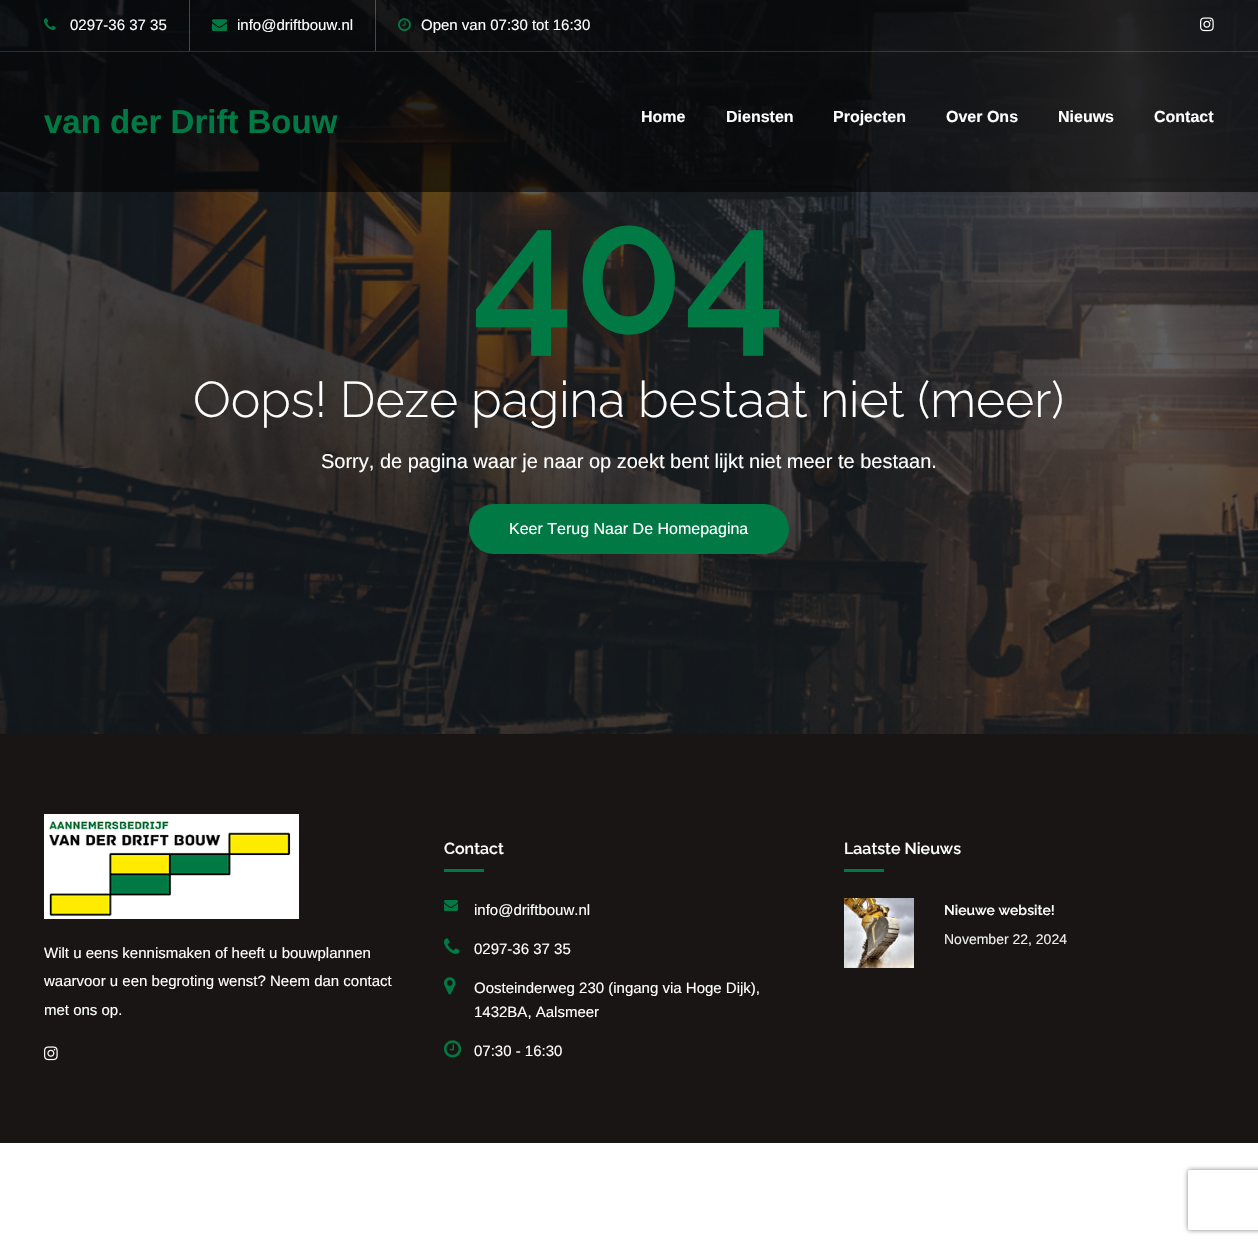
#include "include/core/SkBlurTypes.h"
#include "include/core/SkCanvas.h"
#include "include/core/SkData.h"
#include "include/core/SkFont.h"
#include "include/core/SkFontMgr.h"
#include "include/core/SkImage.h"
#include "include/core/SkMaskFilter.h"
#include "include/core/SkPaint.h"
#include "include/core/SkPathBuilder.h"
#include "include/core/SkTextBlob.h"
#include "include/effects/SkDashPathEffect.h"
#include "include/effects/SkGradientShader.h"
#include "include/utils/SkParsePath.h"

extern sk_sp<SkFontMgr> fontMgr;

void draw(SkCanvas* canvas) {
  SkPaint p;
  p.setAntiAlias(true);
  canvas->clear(SK_ColorWHITE);
  canvas->drawImageRect(SkImages::DeferredFromEncodedData(SkData::MakeFromFileName("images/5.png")), SkRect::MakeLTRB(0, 0, 1258, 734), SkSamplingOptions());
  p.setColor(SkColorSetARGB(153, 0, 0, 0));
  canvas->drawRect(SkRect::MakeLTRB(0, 0, 1258, 192), p);
  p.setColor(SkColorSetARGB(38, 255, 255, 255));
  canvas->drawRect(SkRect::MakeLTRB(0, 51, 1258, 52), p);
  p.setColor(SkColorSetARGB(64, 255, 255, 255));
  canvas->drawRect(SkRect::MakeLTRB(189, 0, 190, 51), p);
  canvas->drawImageRect(SkImages::DeferredFromEncodedData(SkData::MakeFromFileName("images/1.png")), SkRect::MakeLTRB(44, 18, 56, 30), SkSamplingOptions());
  canvas->drawRect(SkRect::MakeLTRB(375, 0, 376, 51), p);
  canvas->drawImageRect(SkImages::DeferredFromEncodedData(SkData::MakeFromFileName("images/2.png")), SkRect::MakeLTRB(212, 19, 227, 32), SkSamplingOptions());
  canvas->drawImageRect(SkImages::DeferredFromEncodedData(SkData::MakeFromFileName("images/3.png")), SkRect::MakeLTRB(398, 18, 411, 31), SkSamplingOptions());
  canvas->drawImageRect(SkImages::DeferredFromEncodedData(SkData::MakeFromFileName("images/4.png")), SkRect::MakeLTRB(1200, 17, 1214, 32), SkSamplingOptions());
  p.setColor(SkColorSetRGB(0, 121, 68));
  canvas->drawRoundRect(SkRect::MakeLTRB(469, 504, 789, 554), 25, 25, p);
  p.setColor(SkColorSetRGB(25, 21, 20));
  canvas->drawRect(SkRect::MakeLTRB(0, 734, 1258, 1143), p);
  p.setColor(SkColorSetRGB(0, 121, 68));
  canvas->drawRect(SkRect::MakeLTRB(444, 869, 484, 872), p);
  canvas->drawImageRect(SkImages::DeferredFromEncodedData(SkData::MakeFromFileName("images/6.png")), SkRect::MakeLTRB(444, 900, 458, 911), SkSamplingOptions());
  canvas->drawImageRect(SkImages::DeferredFromEncodedData(SkData::MakeFromFileName("images/7.png")), SkRect::MakeLTRB(444, 938, 460, 954), SkSamplingOptions());
  canvas->drawImageRect(SkImages::DeferredFromEncodedData(SkData::MakeFromFileName("images/8.png")), SkRect::MakeLTRB(444, 977, 456, 995), SkSamplingOptions());
  canvas->drawImageRect(SkImages::DeferredFromEncodedData(SkData::MakeFromFileName("images/9.png")), SkRect::MakeLTRB(444, 1040, 462, 1058), SkSamplingOptions());
  canvas->drawRect(SkRect::MakeLTRB(844, 869, 884, 872), p);
  canvas->drawImageRect(SkImages::DeferredFromEncodedData(SkData::MakeFromFileName("images/10.png")), SkRect::MakeLTRB(844, 898, 914, 968), SkSamplingOptions());
  canvas->drawImageRect(SkImages::DeferredFromEncodedData(SkData::MakeFromFileName("images/11.png")), SkRect::MakeLTRB(44, 814, 299, 919), SkSamplingOptions());
  canvas->drawImageRect(SkImages::DeferredFromEncodedData(SkData::MakeFromFileName("images/12.png")), SkRect::MakeLTRB(44, 1046, 58, 1061), SkSamplingOptions());
  canvas->save();
  canvas->clipPath(SkPathBuilder(SkPathFillType::kEvenOdd).moveTo(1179, 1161).lineTo(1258, 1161).lineTo(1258, 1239).lineTo(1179, 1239).close().moveTo(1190, 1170).lineTo(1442, 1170).cubicTo(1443, 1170, 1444, 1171, 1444, 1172).lineTo(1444, 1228).cubicTo(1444, 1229, 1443, 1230, 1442, 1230).lineTo(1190, 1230).cubicTo(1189, 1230, 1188, 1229, 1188, 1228).lineTo(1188, 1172).cubicTo(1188, 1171, 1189, 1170, 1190, 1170).close().detach(), true);
  p.setColor(SkColorSetRGB(128, 128, 128));
  p.setMaskFilter(SkMaskFilter::MakeBlur(kNormal_SkBlurStyle, 2.5f));
  canvas->drawRoundRect(SkRect::MakeLTRB(1188, 1170, 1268, 1230), 2, 2, p);
  p.setMaskFilter(nullptr);
  canvas->restore();
  SkFont font1(fontMgr->matchFamilyStyle("Liberation Sans", SkFontStyle::Normal()), 15);
  font1.setSubpixel(true);
  p.setColor(SK_ColorWHITE);
  canvas->drawString("0297-36 37 35", 70, 30, font1, p);
  canvas->drawString("info@driftbouw.nl", 237, 30, font1, p);
  canvas->drawString("Open van 07:30 tot 16:30", 421, 30, font1, p);
  SkFont font2(fontMgr->matchFamilyStyle("Liberation Sans", SkFontStyle::Bold()), 33);
  font2.setSubpixel(true);
  p.setColor(SkColorSetRGB(0, 121, 68));
  canvas->drawString("van der Drift Bouw", 44, 133, font2, p);
  SkFont font3(fontMgr->matchFamilyStyle("Liberation Sans", SkFontStyle::Bold()), 16);
  font3.setSubpixel(true);
  p.setColor(SK_ColorWHITE);
  canvas->drawString("Home", 641, 122, font3, p);
  canvas->drawString("Diensten", 726, 122, font3, p);
  canvas->drawString("Projecten", 833, 122, font3, p);
  canvas->drawString("Over Ons", 946, 122, font3, p);
  canvas->drawString("Nieuws", 1058, 122, font3, p);
  canvas->drawString("Contact", 1154, 122, font3, p);
  SkFont font4(fontMgr->matchFamilyStyle("Raleway", SkFontStyle(600, SkFontStyle::kNormal_Width, SkFontStyle::kUpright_Slant)), 180);
  font4.setSubpixel(true);
  p.setColor(SkColorSetRGB(0, 121, 68));
  canvas->drawString("404", 472, 333, font4, p);
  SkFont font5(fontMgr->matchFamilyStyle("Raleway", SkFontStyle(300, SkFontStyle::kNormal_Width, SkFontStyle::kUpright_Slant)), 50);
  font5.setSubpixel(true);
  p.setColor(SK_ColorWHITE);
  canvas->drawString("Oops! Deze pagina bestaat niet (meer)", 193, 417, font5, p);
  SkFont font6(fontMgr->matchFamilyStyle("Liberation Sans", SkFontStyle::Normal()), 20);
  font6.setSubpixel(true);
  canvas->drawString("Sorry, de pagina waar je naar op zoekt bent lijkt niet meer te bestaan.", 321, 468, font6, p);
  SkFont font7(fontMgr->matchFamilyStyle("Liberation Sans", SkFontStyle::Normal()), 16);
  font7.setSubpixel(true);
  canvas->drawString("Keer Terug Naar De Homepagina", 509, 534, font7, p);
  SkFont font8(fontMgr->matchFamilyStyle("Raleway", SkFontStyle(600, SkFontStyle::kNormal_Width, SkFontStyle::kUpright_Slant)), 16);
  font8.setSubpixel(true);
  canvas->drawString("Contact", 444, 854, font8, p);
  canvas->drawString("info@driftbouw.nl", 474, 915, font1, p);
  canvas->drawString("0297-36 37 35", 474, 954, font1, p);
  canvas->drawString("Oosteinderweg 230 (ingang via Hoge Dijk),", 474, 993, font1, p);
  canvas->drawString("1432BA, Aalsmeer", 474, 1017, font1, p);
  canvas->drawString("07:30 - 16:30", 474, 1056, font1, p);
  canvas->drawString("Laatste Nieuws", 844, 854, font8, p);
  SkFont font9(fontMgr->matchFamilyStyle("Raleway", SkFontStyle(600, SkFontStyle::kNormal_Width, SkFontStyle::kUpright_Slant)), 14);
  font9.setSubpixel(true);
  canvas->drawString("Nieuwe website!", 944, 915, font9, p);
  SkFont font10(fontMgr->matchFamilyStyle("Liberation Sans", SkFontStyle::Normal()), 14);
  font10.setSubpixel(true);
  p.setColor(SkColorSetRGB(238, 238, 238));
  canvas->drawString("November 22, 2024", 944, 944, font10, p);
  p.setColor(SK_ColorWHITE);
  canvas->drawString("Wilt u eens kennismaken of heeft u bouwplannen", 44, 958, font1, p);
  canvas->drawString("waarvoor u een begroting wenst? Neem dan contact", 44, 986, font1, p);
  canvas->drawString("met ons op.", 44, 1015, font1, p);
}
